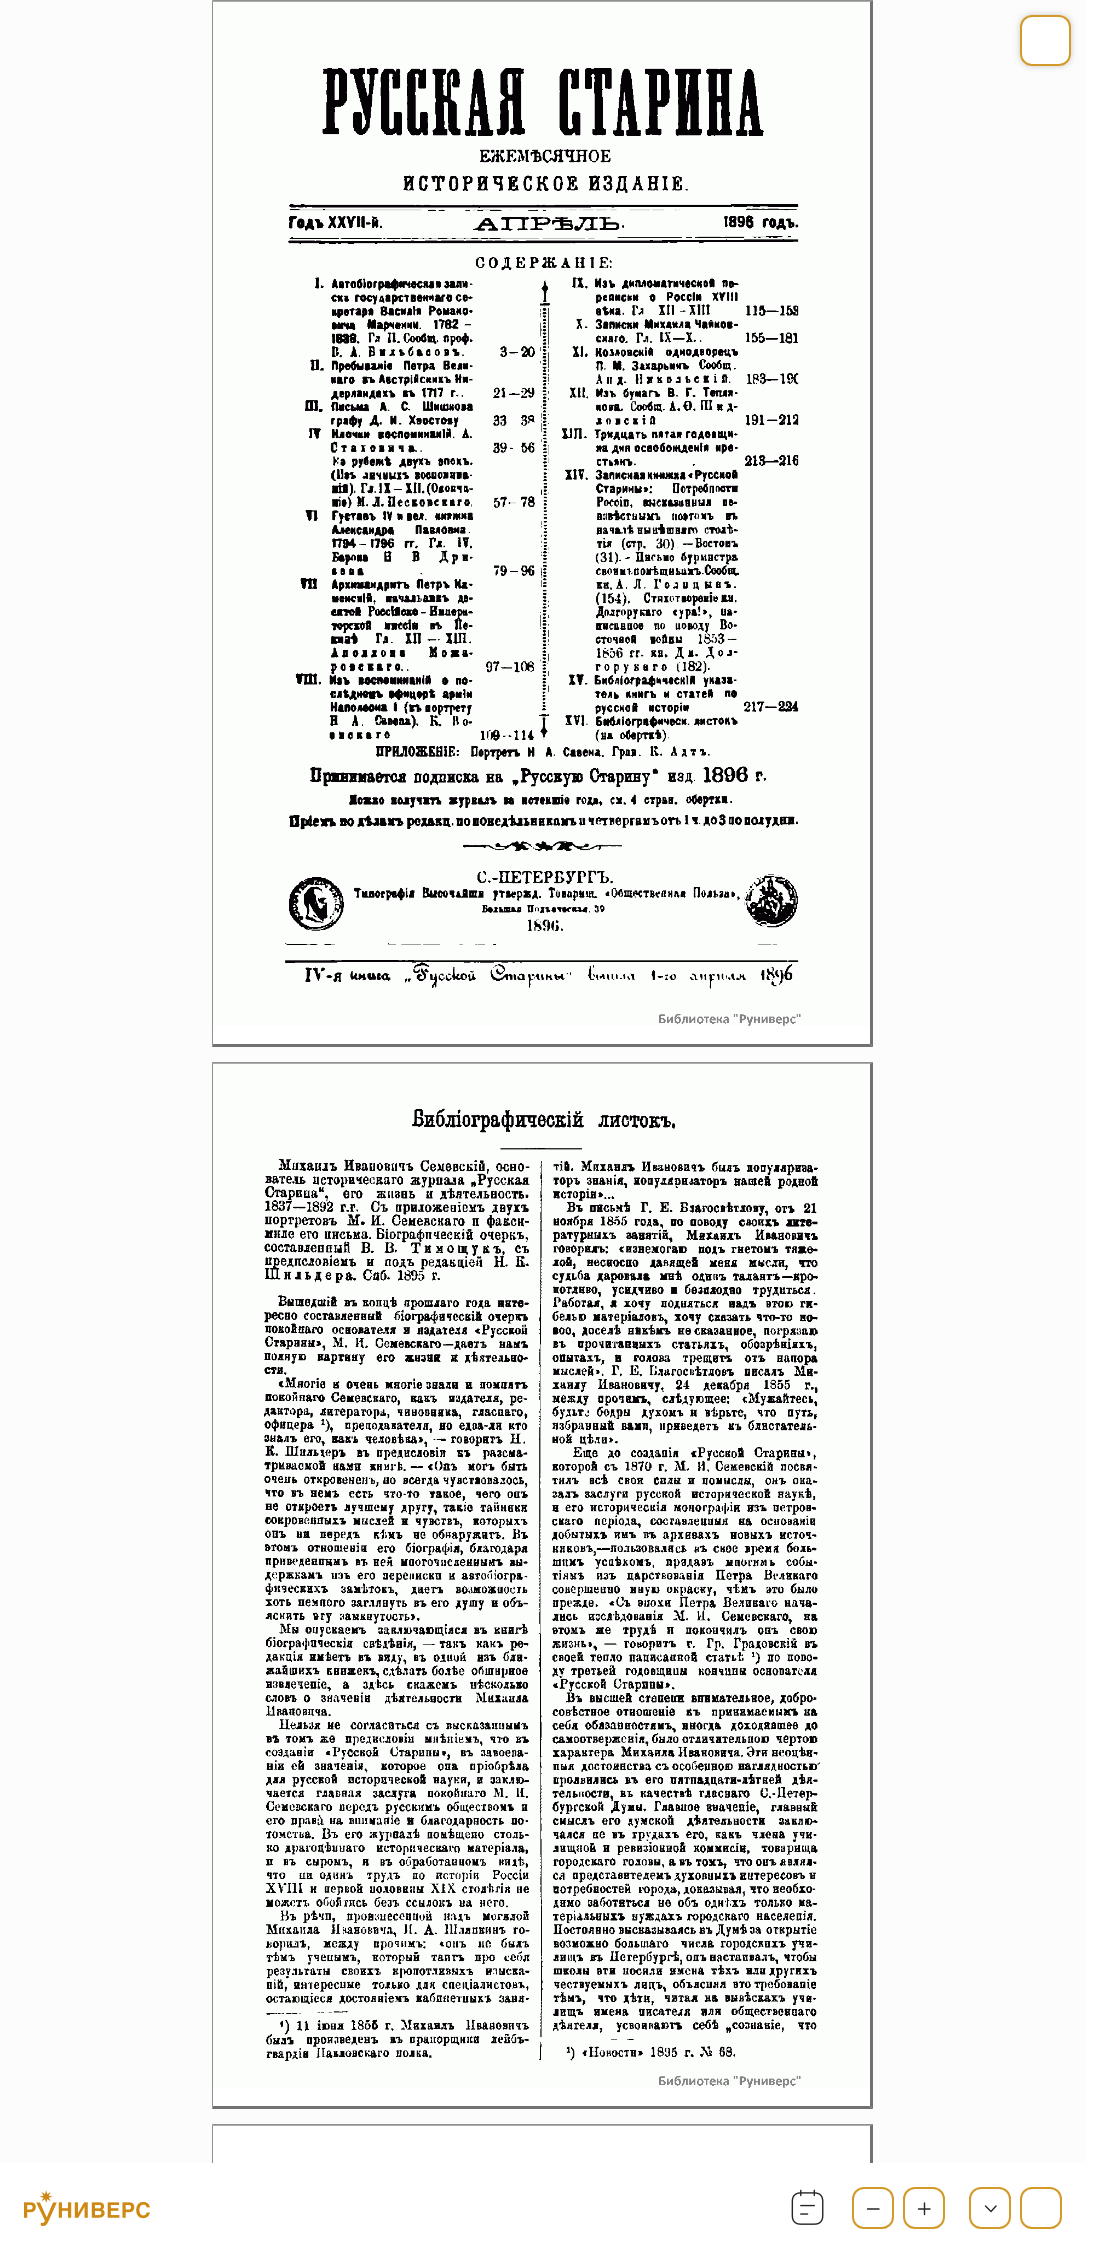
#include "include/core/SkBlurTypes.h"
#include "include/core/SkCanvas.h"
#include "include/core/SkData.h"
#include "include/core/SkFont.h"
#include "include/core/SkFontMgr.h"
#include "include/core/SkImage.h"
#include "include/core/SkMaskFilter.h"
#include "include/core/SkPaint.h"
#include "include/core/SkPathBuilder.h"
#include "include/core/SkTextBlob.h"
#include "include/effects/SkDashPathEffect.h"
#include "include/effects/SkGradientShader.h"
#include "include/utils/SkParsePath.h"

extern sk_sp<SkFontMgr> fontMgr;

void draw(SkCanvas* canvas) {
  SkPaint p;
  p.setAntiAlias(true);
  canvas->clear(SK_ColorWHITE);
  p.setColor(SkColorSetRGB(252, 252, 252));
  canvas->drawRect(SkRect::MakeLTRB(0, 0, 1086, 2163), p);
  p.setColor(SK_ColorWHITE);
  canvas->drawRect(SkRect::MakeLTRB(213, 1026, 870, 1044), p);
  p.setColor(SkColorSetRGB(144, 144, 144));
  canvas->drawPath(SkPathBuilder().moveTo(212, 0).lineTo(873, 0).lineTo(870, 2).lineTo(213, 2).close().detach(), p);
  p.setColor(SkColorSetRGB(113, 113, 113));
  canvas->drawPath(SkPathBuilder().moveTo(873, 0).lineTo(873, 1047).lineTo(870, 1044).lineTo(870, 2).close().detach(), p);
  canvas->drawPath(SkPathBuilder().moveTo(873, 1047).lineTo(212, 1047).lineTo(213, 1044).lineTo(870, 1044).close().detach(), p);
  p.setColor(SkColorSetRGB(144, 144, 144));
  canvas->drawPath(SkPathBuilder().moveTo(212, 1047).lineTo(212, 0).lineTo(213, 2).lineTo(213, 1044).close().detach(), p);
  canvas->drawImageRect(SkImages::DeferredFromEncodedData(SkData::MakeFromFileName("images/1.png")), SkRect::MakeLTRB(213, 1, 870, 1026), SkSamplingOptions());
  p.setColor(SK_ColorWHITE);
  canvas->drawRect(SkRect::MakeLTRB(213, 2088, 870, 2106), p);
  p.setColor(SkColorSetRGB(144, 144, 144));
  canvas->drawPath(SkPathBuilder().moveTo(212, 1062).lineTo(873, 1062).lineTo(870, 1064).lineTo(213, 1064).close().detach(), p);
  p.setColor(SkColorSetRGB(113, 113, 113));
  canvas->drawPath(SkPathBuilder().moveTo(873, 1062).lineTo(873, 2109).lineTo(870, 2106).lineTo(870, 1064).close().detach(), p);
  canvas->drawPath(SkPathBuilder().moveTo(873, 2109).lineTo(212, 2109).lineTo(213, 2106).lineTo(870, 2106).close().detach(), p);
  p.setColor(SkColorSetRGB(144, 144, 144));
  canvas->drawPath(SkPathBuilder().moveTo(212, 2109).lineTo(212, 1062).lineTo(213, 1064).lineTo(213, 2106).close().detach(), p);
  canvas->drawImageRect(SkImages::DeferredFromEncodedData(SkData::MakeFromFileName("images/2.png")), SkRect::MakeLTRB(213, 1063, 870, 2088), SkSamplingOptions());
  p.setColor(SK_ColorWHITE);
  canvas->drawRect(SkRect::MakeLTRB(213, 2126, 870, 2163), p);
  p.setColor(SkColorSetRGB(144, 144, 144));
  canvas->drawPath(SkPathBuilder().moveTo(212, 2124).lineTo(873, 2124).lineTo(870, 2126).lineTo(213, 2126).close().detach(), p);
  p.setColor(SkColorSetRGB(113, 113, 113));
  canvas->drawPath(SkPathBuilder().moveTo(873, 2124).lineTo(873, 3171).lineTo(870, 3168).lineTo(870, 2126).close().detach(), p);
  p.setColor(SkColorSetRGB(144, 144, 144));
  canvas->drawPath(SkPathBuilder().moveTo(212, 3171).lineTo(212, 2124).lineTo(213, 2126).lineTo(213, 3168).close().detach(), p);
  p.setColor(SkColorSetRGB(171, 172, 171));
  canvas->drawRect(SkRect::MakeLTRB(213, 2125, 870, 2126), p);
  canvas->save();
  canvas->clipPath(SkPathBuilder(SkPathFillType::kEvenOdd).moveTo(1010, 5).lineTo(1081, 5).lineTo(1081, 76).lineTo(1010, 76).close().moveTo(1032, 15).lineTo(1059, 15).cubicTo(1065.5f, 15, 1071, 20.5f, 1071, 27).lineTo(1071, 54).cubicTo(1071, 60.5f, 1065.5f, 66, 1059, 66).lineTo(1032, 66).cubicTo(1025.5f, 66, 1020, 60.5f, 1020, 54).lineTo(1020, 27).cubicTo(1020, 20.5f, 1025.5f, 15, 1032, 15).close().detach(), true);
  p.setColor(SkColorSetARGB(51, 0, 0, 0));
  p.setMaskFilter(SkMaskFilter::MakeBlur(kNormal_SkBlurStyle, 3));
  canvas->drawRoundRect(SkRect::MakeLTRB(1020, 15, 1071, 66), 12, 12, p);
  p.setMaskFilter(nullptr);
  canvas->restore();
  p.setColor(SkColorSetARGB(204, 255, 255, 255));
  canvas->drawRoundRect(SkRect::MakeLTRB(1021, 16, 1070, 65), 11, 11, p);
  p.setStyle(SkPaint::kStroke_Style);
  p.setStrokeWidth(2);
  p.setColor(SkColorSetRGB(211, 154, 41));
  canvas->drawRoundRect(SkRect::MakeLTRB(1021, 16, 1070, 65), 11, 11, p);
  p.setStyle(SkPaint::kFill_Style);
  p.setColor(SK_ColorWHITE);
  canvas->drawRect(SkRect::MakeLTRB(212, 2163, 873, 2252), p);
  canvas->drawImageRect(SkImages::DeferredFromEncodedData(SkData::MakeFromFileName("images/3.png")), SkRect::MakeLTRB(24, 2190, 150, 2226), SkSamplingOptions());
  canvas->drawImageRect(SkImages::DeferredFromEncodedData(SkData::MakeFromFileName("images/4.png")), SkRect::MakeLTRB(791, 2189, 824, 2225), SkSamplingOptions());
  p.setStyle(SkPaint::kStroke_Style);
  p.setColor(SkColorSetRGB(211, 154, 41));
  canvas->drawRoundRect(SkRect::MakeLTRB(853, 2188, 893, 2228), 11, 11, p);
  p.setStrokeWidth(1.4f);
  p.setStrokeCap(SkPaint::kRound_Cap);
  p.setStrokeJoin(SkPaint::kRound_Join);
  p.setColor(SkColorSetRGB(37, 37, 37));
  canvas->drawPath(SkPathBuilder().moveTo(879, 2209).lineTo(867.5f, 2209).detach(), p);
  p.setStrokeWidth(2);
  p.setStrokeCap(SkPaint::kButt_Cap);
  p.setStrokeJoin(SkPaint::kMiter_Join);
  p.setColor(SkColorSetRGB(211, 154, 41));
  canvas->drawRoundRect(SkRect::MakeLTRB(904, 2188, 944, 2228), 11, 11, p);
  p.setStrokeWidth(1.4f);
  p.setStrokeCap(SkPaint::kRound_Cap);
  p.setStrokeJoin(SkPaint::kRound_Join);
  p.setColor(SkColorSetRGB(37, 37, 37));
  canvas->drawPath(SkPathBuilder().moveTo(930, 2209).lineTo(918.5f, 2209).moveTo(924.5f, 2214.5f).lineTo(924.5f, 2203).detach(), p);
  p.setStrokeWidth(2);
  p.setStrokeCap(SkPaint::kButt_Cap);
  p.setStrokeJoin(SkPaint::kMiter_Join);
  p.setColor(SkColorSetRGB(211, 154, 41));
  canvas->drawRoundRect(SkRect::MakeLTRB(970, 2188, 1010, 2228), 11, 11, p);
  p.setStrokeWidth(1.4f);
  p.setStrokeCap(SkPaint::kRound_Cap);
  p.setColor(SkColorSetRGB(37, 37, 37));
  canvas->drawPath(SkPathBuilder().moveTo(985.5f, 2206).lineTo(991, 2211.5f).lineTo(996, 2206).detach(), p);
  p.setStrokeWidth(2);
  p.setStrokeCap(SkPaint::kButt_Cap);
  p.setColor(SkColorSetRGB(211, 154, 41));
  canvas->drawRoundRect(SkRect::MakeLTRB(1021, 2188, 1061, 2228), 11, 11, p);
}
